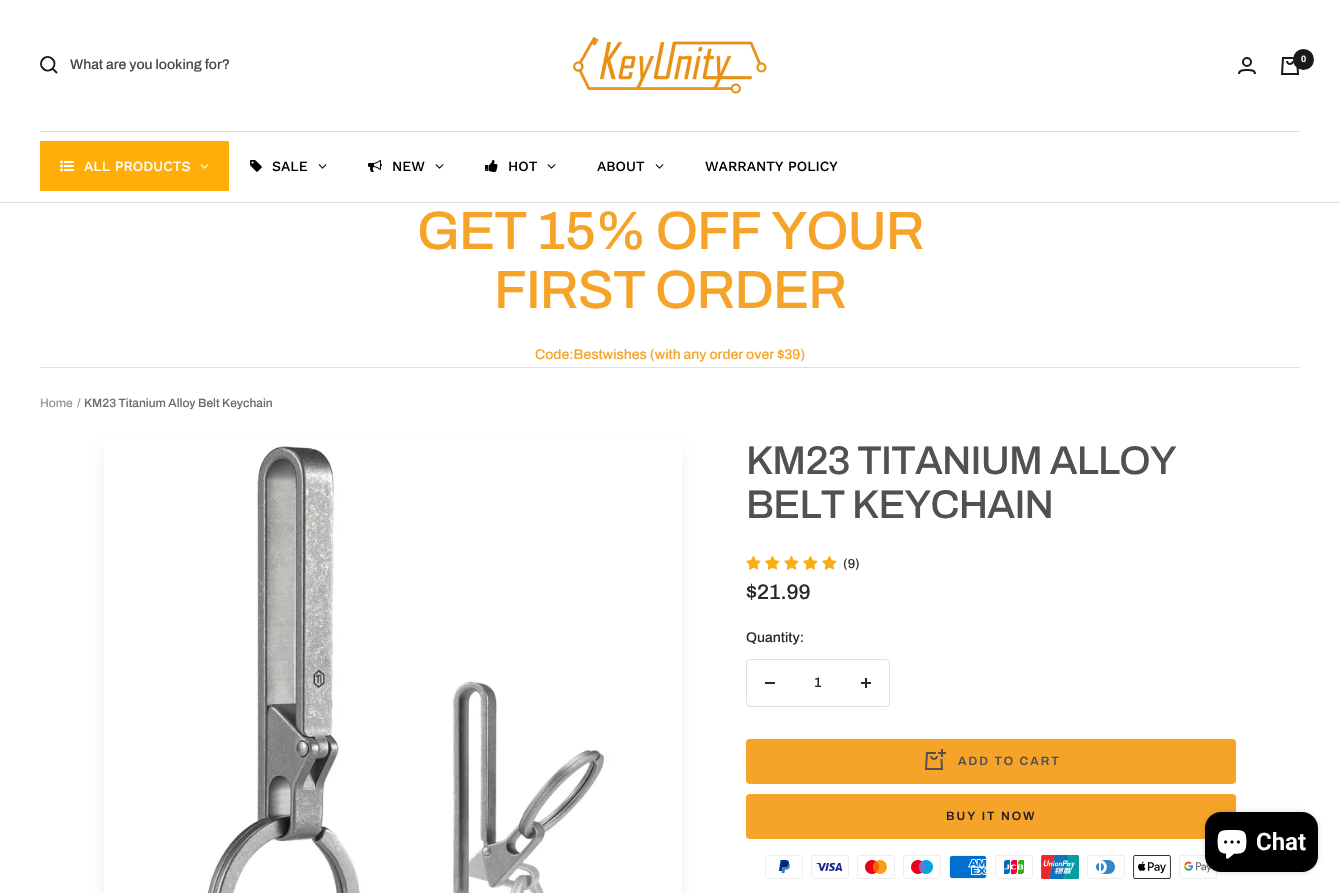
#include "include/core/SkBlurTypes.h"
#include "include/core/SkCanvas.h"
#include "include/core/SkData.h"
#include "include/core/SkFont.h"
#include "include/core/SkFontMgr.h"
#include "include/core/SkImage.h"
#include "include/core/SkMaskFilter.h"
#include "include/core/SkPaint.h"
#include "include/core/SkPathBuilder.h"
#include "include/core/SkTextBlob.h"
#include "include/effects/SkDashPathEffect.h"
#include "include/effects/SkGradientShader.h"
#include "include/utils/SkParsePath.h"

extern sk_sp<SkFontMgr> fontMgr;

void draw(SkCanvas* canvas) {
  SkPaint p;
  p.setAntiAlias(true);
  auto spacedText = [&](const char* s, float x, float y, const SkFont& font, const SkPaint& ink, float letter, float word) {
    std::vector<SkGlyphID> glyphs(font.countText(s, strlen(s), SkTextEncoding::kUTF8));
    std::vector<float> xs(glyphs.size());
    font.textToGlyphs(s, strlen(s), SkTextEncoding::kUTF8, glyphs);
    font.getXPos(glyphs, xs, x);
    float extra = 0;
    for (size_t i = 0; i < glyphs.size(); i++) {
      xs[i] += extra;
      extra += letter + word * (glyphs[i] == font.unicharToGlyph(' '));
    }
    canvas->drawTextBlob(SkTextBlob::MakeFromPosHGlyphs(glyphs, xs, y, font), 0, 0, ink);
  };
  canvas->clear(SK_ColorWHITE);
  p.setColor(SkColorSetRGB(223, 223, 223));
  canvas->drawRect(SkRect::MakeLTRB(0, 202, 1340, 203), p);
  p.setStyle(SkPaint::kStroke_Style);
  p.setStrokeWidth(2);
  p.setColor(SkColorSetRGB(26, 26, 26));
  canvas->drawPath(SkPathBuilder().moveTo(52.5f, 68.5f).cubicTo(58.5f, 62, 49.5f, 53, 43, 59).cubicTo(37, 65.5f, 46, 74.5f, 52.5f, 68.5f).close().moveTo(52.5f, 68.5f).lineTo(57, 73).detach(), p);
  canvas->drawImageRect(SkImages::DeferredFromEncodedData(SkData::MakeFromFileName("images/1.png")), SkRect::MakeLTRB(573, 37, 767, 94), SkSamplingOptions());
  canvas->drawCircle(1247, 62, 4, p);
  canvas->drawPath(SkPathBuilder().moveTo(1239, 74).cubicTo(1239, 69.5f, 1244, 70, 1247, 70).cubicTo(1250, 70, 1255, 69.5f, 1255, 74).detach(), p);
  canvas->drawImageRect(SkImages::DeferredFromEncodedData(SkData::MakeFromFileName("images/2.png")), SkRect::MakeLTRB(1280, 57, 1300, 75), SkSamplingOptions());
  p.setStyle(SkPaint::kFill_Style);
  canvas->drawCircle(1303.5f, 59.5f, 10.5f, p);
  p.setColor(SkColorSetRGB(221, 221, 221));
  canvas->drawRect(SkRect::MakeLTRB(40, 131, 1300, 132), p);
  p.setColor(SkColorSetRGB(255, 174, 8));
  canvas->drawRect(SkRect::MakeLTRB(40, 141, 229, 191), p);
  canvas->drawImageRect(SkImages::DeferredFromEncodedData(SkData::MakeFromFileName("images/3.png")), SkRect::MakeLTRB(60, 160, 74, 172), SkSamplingOptions());
  canvas->drawImageRect(SkImages::DeferredFromEncodedData(SkData::MakeFromFileName("images/4.png")), SkRect::MakeLTRB(200, 164, 209, 169), SkSamplingOptions());
  canvas->drawImageRect(SkImages::DeferredFromEncodedData(SkData::MakeFromFileName("images/5.png")), SkRect::MakeLTRB(250, 160, 262, 172), SkSamplingOptions());
  canvas->drawImageRect(SkImages::DeferredFromEncodedData(SkData::MakeFromFileName("images/6.png")), SkRect::MakeLTRB(318, 164, 327, 169), SkSamplingOptions());
  canvas->drawImageRect(SkImages::DeferredFromEncodedData(SkData::MakeFromFileName("images/7.png")), SkRect::MakeLTRB(368, 160, 382, 172), SkSamplingOptions());
  canvas->drawImageRect(SkImages::DeferredFromEncodedData(SkData::MakeFromFileName("images/6.png")), SkRect::MakeLTRB(435, 164, 444, 169), SkSamplingOptions());
  canvas->drawImageRect(SkImages::DeferredFromEncodedData(SkData::MakeFromFileName("images/8.png")), SkRect::MakeLTRB(485, 160, 498, 172), SkSamplingOptions());
  canvas->drawImageRect(SkImages::DeferredFromEncodedData(SkData::MakeFromFileName("images/6.png")), SkRect::MakeLTRB(547, 164, 556, 169), SkSamplingOptions());
  canvas->drawImageRect(SkImages::DeferredFromEncodedData(SkData::MakeFromFileName("images/6.png")), SkRect::MakeLTRB(655, 164, 664, 169), SkSamplingOptions());
  p.setColor(SkColorSetRGB(223, 223, 223));
  canvas->drawRect(SkRect::MakeLTRB(40, 367, 1300, 368), p);
  p.setColor(SkColorSetARGB(26, 0, 0, 0));
  p.setMaskFilter(SkMaskFilter::MakeBlur(kNormal_SkBlurStyle, 7.5f));
  canvas->drawRoundRect(SkRect::MakeLTRB(107, 452, 679, 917), 1, 1, p);
  p.setMaskFilter(nullptr);
  canvas->drawImageRect(SkImages::DeferredFromEncodedData(SkData::MakeFromFileName("images/9.png")), SkRect::MakeLTRB(104, 439, 682, 893), SkSamplingOptions());
  canvas->drawImageRect(SkImages::DeferredFromEncodedData(SkData::MakeFromFileName("images/10.png")), SkRect::MakeLTRB(746, 556, 761, 570), SkSamplingOptions());
  canvas->drawImageRect(SkImages::DeferredFromEncodedData(SkData::MakeFromFileName("images/11.png")), SkRect::MakeLTRB(746, 556, 754, 570), SkSamplingOptions());
  canvas->drawImageRect(SkImages::DeferredFromEncodedData(SkData::MakeFromFileName("images/10.png")), SkRect::MakeLTRB(765, 556, 780, 570), SkSamplingOptions());
  canvas->drawImageRect(SkImages::DeferredFromEncodedData(SkData::MakeFromFileName("images/11.png")), SkRect::MakeLTRB(765, 556, 773, 570), SkSamplingOptions());
  canvas->drawImageRect(SkImages::DeferredFromEncodedData(SkData::MakeFromFileName("images/10.png")), SkRect::MakeLTRB(784, 556, 799, 570), SkSamplingOptions());
  canvas->drawImageRect(SkImages::DeferredFromEncodedData(SkData::MakeFromFileName("images/11.png")), SkRect::MakeLTRB(784, 556, 792, 570), SkSamplingOptions());
  canvas->drawImageRect(SkImages::DeferredFromEncodedData(SkData::MakeFromFileName("images/10.png")), SkRect::MakeLTRB(803, 556, 818, 570), SkSamplingOptions());
  canvas->drawImageRect(SkImages::DeferredFromEncodedData(SkData::MakeFromFileName("images/11.png")), SkRect::MakeLTRB(803, 556, 811, 570), SkSamplingOptions());
  canvas->drawImageRect(SkImages::DeferredFromEncodedData(SkData::MakeFromFileName("images/10.png")), SkRect::MakeLTRB(822, 556, 837, 570), SkSamplingOptions());
  canvas->drawImageRect(SkImages::DeferredFromEncodedData(SkData::MakeFromFileName("images/11.png")), SkRect::MakeLTRB(822, 556, 830, 570), SkSamplingOptions());
  p.setStyle(SkPaint::kStroke_Style);
  p.setStrokeWidth(1);
  p.setColor(SkColorSetRGB(223, 223, 223));
  canvas->drawRoundRect(SkRect::MakeLTRB(746.5f, 659.5f, 889.5f, 706.5f), 3.5f, 3.5f, p);
  p.setStyle(SkPaint::kFill_Style);
  p.setColor(SkColorSetRGB(43, 43, 43));
  canvas->drawRect(SkRect::MakeLTRB(765, 682, 775, 684), p);
  canvas->drawImageRect(SkImages::DeferredFromEncodedData(SkData::MakeFromFileName("images/12.png")), SkRect::MakeLTRB(861, 678, 871, 688), SkSamplingOptions());
  p.setColor(SkColorSetRGB(246, 164, 41));
  canvas->drawRoundRect(SkRect::MakeLTRB(746, 739, 1236, 784), 4, 4, p);
  canvas->drawImageRect(SkImages::DeferredFromEncodedData(SkData::MakeFromFileName("images/13.png")), SkRect::MakeLTRB(924, 749, 946, 770), SkSamplingOptions());
  canvas->drawRoundRect(SkRect::MakeLTRB(746, 794, 1236, 839), 4, 4, p);
  canvas->drawImageRect(SkImages::DeferredFromEncodedData(SkData::MakeFromFileName("images/14.png")), SkRect::MakeLTRB(765, 855, 803, 879), SkSamplingOptions());
  canvas->drawImageRect(SkImages::DeferredFromEncodedData(SkData::MakeFromFileName("images/15.png")), SkRect::MakeLTRB(811, 855, 849, 879), SkSamplingOptions());
  canvas->drawImageRect(SkImages::DeferredFromEncodedData(SkData::MakeFromFileName("images/16.png")), SkRect::MakeLTRB(857, 855, 895, 879), SkSamplingOptions());
  canvas->drawImageRect(SkImages::DeferredFromEncodedData(SkData::MakeFromFileName("images/17.png")), SkRect::MakeLTRB(903, 855, 941, 879), SkSamplingOptions());
  canvas->drawImageRect(SkImages::DeferredFromEncodedData(SkData::MakeFromFileName("images/18.png")), SkRect::MakeLTRB(949, 855, 987, 879), SkSamplingOptions());
  canvas->drawImageRect(SkImages::DeferredFromEncodedData(SkData::MakeFromFileName("images/19.png")), SkRect::MakeLTRB(995, 855, 1033, 879), SkSamplingOptions());
  canvas->drawImageRect(SkImages::DeferredFromEncodedData(SkData::MakeFromFileName("images/20.png")), SkRect::MakeLTRB(1041, 855, 1079, 879), SkSamplingOptions());
  canvas->drawImageRect(SkImages::DeferredFromEncodedData(SkData::MakeFromFileName("images/21.png")), SkRect::MakeLTRB(1087, 855, 1125, 879), SkSamplingOptions());
  canvas->drawImageRect(SkImages::DeferredFromEncodedData(SkData::MakeFromFileName("images/22.png")), SkRect::MakeLTRB(1133, 855, 1171, 879), SkSamplingOptions());
  canvas->drawImageRect(SkImages::DeferredFromEncodedData(SkData::MakeFromFileName("images/23.png")), SkRect::MakeLTRB(1179, 855, 1217, 879), SkSamplingOptions());
  p.setColor(SkColorSetARGB(38, 0, 0, 0));
  p.setMaskFilter(SkMaskFilter::MakeBlur(kNormal_SkBlurStyle, 2.5f));
  canvas->drawRoundRect(SkRect::MakeLTRB(1205, 812, 1318, 872), 16, 16, p);
  p.setMaskFilter(nullptr);
  p.setColor(SK_ColorBLACK);
  canvas->drawRoundRect(SkRect::MakeLTRB(1205, 812, 1318, 872), 16, 16, p);
  canvas->drawImageRect(SkImages::DeferredFromEncodedData(SkData::MakeFromFileName("images/24.png")), SkRect::MakeLTRB(1217, 830, 1247, 859), SkSamplingOptions());
  SkFont font1(fontMgr->matchFamilyStyle("Archivo", SkFontStyle(500, SkFontStyle::kNormal_Width, SkFontStyle::kUpright_Slant)), 14);
  font1.setSubpixel(true);
  p.setColor(SkColorSetRGB(72, 72, 72));
  canvas->drawString("What are you looking for?", 70, 69, font1, p);
  SkFont font2(fontMgr->matchFamilyStyle("Archivo", SkFontStyle(600, SkFontStyle::kNormal_Width, SkFontStyle::kUpright_Slant)), 9);
  font2.setSubpixel(true);
  p.setColor(SK_ColorWHITE);
  canvas->drawString("0", 1301, 62, font2, p);
  SkFont font3(fontMgr->matchFamilyStyle("Work Sans", SkFontStyle(500, SkFontStyle::kNormal_Width, SkFontStyle::kUpright_Slant)), 14);
  font3.setSubpixel(true);
  canvas->drawString("ALL PRODUCTS", 84, 171, font3, p);
  p.setColor(SK_ColorBLACK);
  canvas->drawString("SALE", 272, 171, font3, p);
  canvas->drawString("NEW", 392, 171, font3, p);
  canvas->drawString("HOT", 508, 171, font3, p);
  canvas->drawString("ABOUT", 597, 171, font3, p);
  canvas->drawString("WARRANTY POLICY", 705, 171, font3, p);
  SkFont font4(fontMgr->matchFamilyStyle("Archivo", SkFontStyle(500, SkFontStyle::kNormal_Width, SkFontStyle::kUpright_Slant)), 54);
  font4.setSubpixel(true);
  p.setColor(SkColorSetRGB(246, 164, 41));
  spacedText("GET 15% OFF YOUR", 417, 249, font4, p, -1, 0);
  spacedText("FIRST ORDER", 494, 308, font4, p, -1, 0);
  canvas->drawString("Code:Bestwishes (with any order over $39)", 535, 359, font1, p);
  SkFont font5(fontMgr->matchFamilyStyle("Archivo", SkFontStyle(500, SkFontStyle::kNormal_Width, SkFontStyle::kUpright_Slant)), 12);
  font5.setSubpixel(true);
  p.setColor(SkColorSetRGB(151, 151, 151));
  canvas->drawString("Home", 40, 407, font5, p);
  canvas->drawString("/", 77, 407, font5, p);
  p.setColor(SkColorSetRGB(107, 107, 107));
  canvas->drawString("KM23 Titanium Alloy Belt Keychain", 84, 407, font5, p);
  SkFont font6(fontMgr->matchFamilyStyle("Archivo", SkFontStyle(500, SkFontStyle::kNormal_Width, SkFontStyle::kUpright_Slant)), 40);
  font6.setSubpixel(true);
  p.setColor(SkColorSetRGB(81, 81, 81));
  spacedText("KM23 TITANIUM ALLOY", 746, 474, font6, p, -0.75f, 0);
  spacedText("BELT KEYCHAIN", 746, 518, font6, p, -0.75f, 0);
  SkFont font7(fontMgr->matchFamilyStyle("Archivo", SkFontStyle(500, SkFontStyle::kNormal_Width, SkFontStyle::kUpright_Slant)), 13);
  font7.setSubpixel(true);
  p.setColor(SkColorSetRGB(51, 51, 51));
  canvas->drawString("(9)", 843, 568, font7, p);
  SkFont font8(fontMgr->matchFamilyStyle("Archivo", SkFontStyle(500, SkFontStyle::kNormal_Width, SkFontStyle::kUpright_Slant)), 21);
  font8.setSubpixel(true);
  p.setColor(SkColorSetRGB(43, 43, 43));
  canvas->drawString("$21.99", 746, 599, font8, p);
  canvas->drawString("Quantity:", 746, 642, font1, p);
  canvas->drawString("1", 814, 687, font1, p);
  SkFont font9(fontMgr->matchFamilyStyle("Archivo", SkFontStyle(600, SkFontStyle::kNormal_Width, SkFontStyle::kUpright_Slant)), 12);
  font9.setSubpixel(true);
  p.setColor(SkColorSetRGB(81, 81, 81));
  spacedText("ADD TO CART", 958, 765, font9, p, 2, 0);
  p.setColor(SkColorSetRGB(41, 37, 36));
  spacedText("BUY IT NOW", 946, 820, font9, p, 2, 0);
  SkFont font10(fontMgr->matchFamilyStyle("Roboto", SkFontStyle(600, SkFontStyle::kNormal_Width, SkFontStyle::kUpright_Slant)), 24);
  font10.setSubpixel(true);
  p.setColor(SK_ColorWHITE);
  canvas->drawString("Chat", 1256, 850, font10, p);
}
